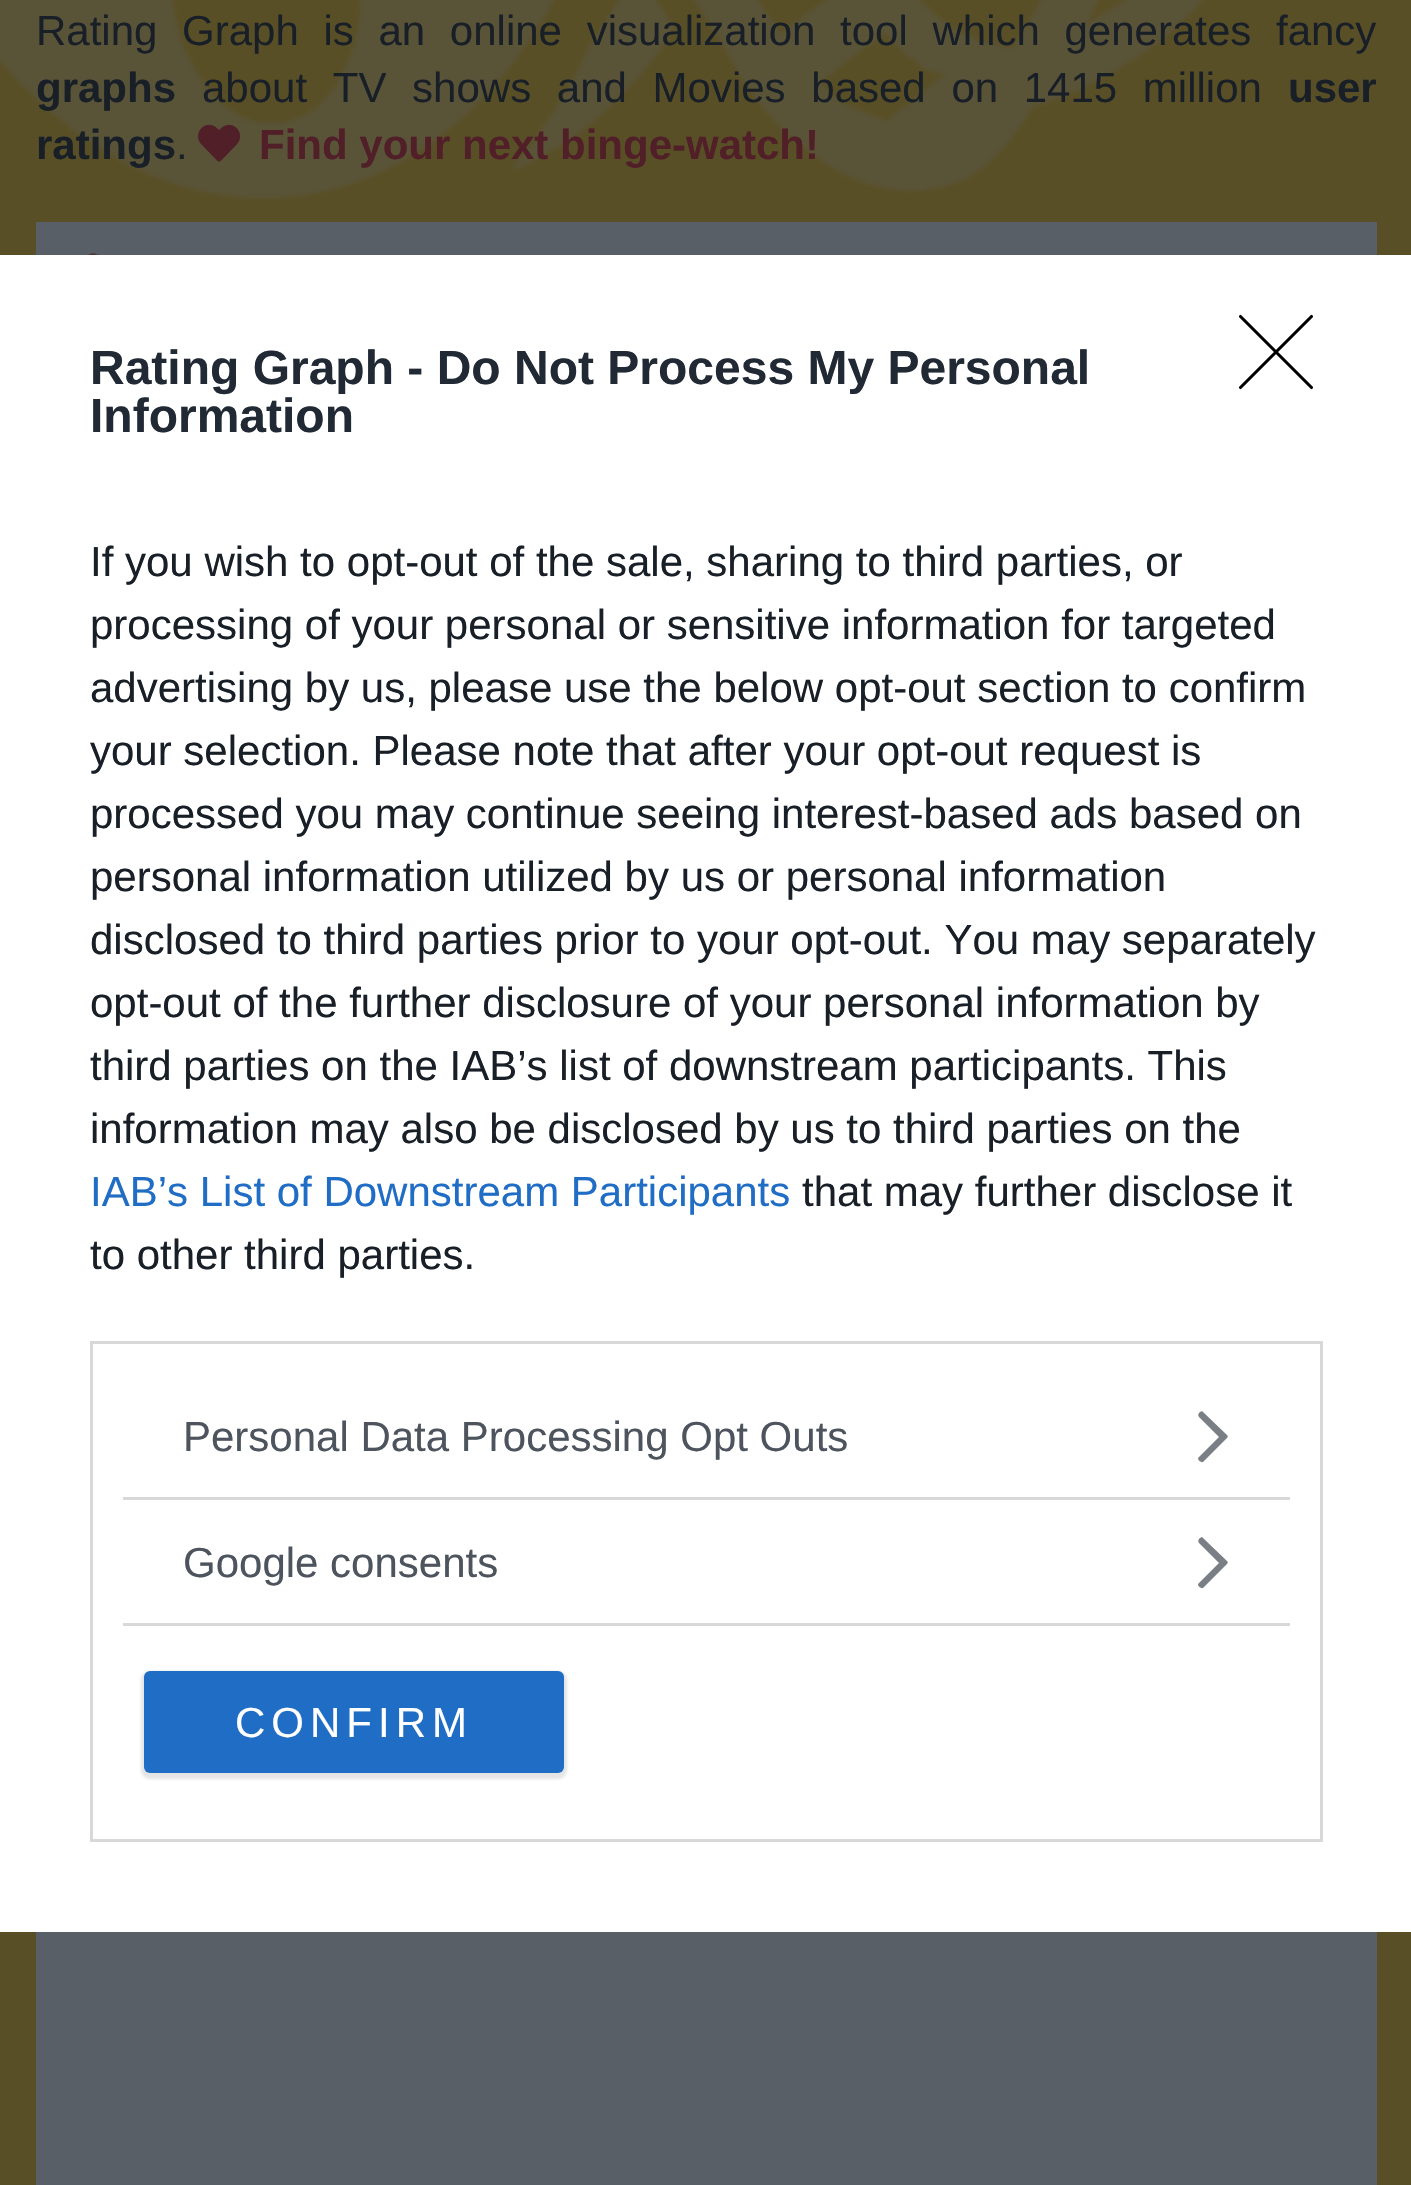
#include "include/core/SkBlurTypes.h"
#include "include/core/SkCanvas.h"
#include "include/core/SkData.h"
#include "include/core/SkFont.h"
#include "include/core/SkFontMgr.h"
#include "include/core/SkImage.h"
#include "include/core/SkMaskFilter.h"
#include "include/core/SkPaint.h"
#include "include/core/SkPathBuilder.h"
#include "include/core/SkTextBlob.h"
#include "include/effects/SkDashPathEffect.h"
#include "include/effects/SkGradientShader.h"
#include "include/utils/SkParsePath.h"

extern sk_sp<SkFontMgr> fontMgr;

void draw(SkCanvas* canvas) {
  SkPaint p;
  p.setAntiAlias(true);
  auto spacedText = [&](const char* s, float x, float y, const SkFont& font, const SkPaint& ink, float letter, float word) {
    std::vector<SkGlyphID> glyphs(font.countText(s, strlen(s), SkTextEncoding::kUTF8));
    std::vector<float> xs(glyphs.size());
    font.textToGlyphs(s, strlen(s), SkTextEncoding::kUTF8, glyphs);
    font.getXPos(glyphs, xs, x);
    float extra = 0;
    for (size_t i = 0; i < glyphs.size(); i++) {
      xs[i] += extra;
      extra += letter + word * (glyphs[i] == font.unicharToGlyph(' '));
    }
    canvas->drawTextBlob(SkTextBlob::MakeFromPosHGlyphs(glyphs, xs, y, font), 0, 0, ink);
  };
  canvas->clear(SkColorSetRGB(89, 79, 39));
  canvas->drawImageRect(SkImages::DeferredFromEncodedData(SkData::MakeFromFileName("images/1.png")), SkRect::MakeLTRB(0, 0, 1206, 200), SkSamplingOptions());
  canvas->drawImageRect(SkImages::DeferredFromEncodedData(SkData::MakeFromFileName("images/2.png")), SkRect::MakeLTRB(198, 124, 241, 162), SkSamplingOptions());
  p.setColor(SkColorSetRGB(89, 95, 103));
  canvas->drawRect(SkRect::MakeLTRB(36, 222, 1377, 2185), p);
  canvas->drawImageRect(SkImages::DeferredFromEncodedData(SkData::MakeFromFileName("images/3.png")), SkRect::MakeLTRB(87, 253, 99, 255), SkSamplingOptions());
  p.setColor(SK_ColorWHITE);
  canvas->drawRect(SkRect::MakeLTRB(0, 255, 1411, 1932), p);
  p.setStyle(SkPaint::kStroke_Style);
  p.setStrokeWidth(3.1f);
  p.setStrokeCap(SkPaint::kRound_Cap);
  p.setStrokeJoin(SkPaint::kRound_Join);
  p.setColor(SK_ColorBLACK);
  canvas->drawPath(SkPathBuilder().moveTo(1240.5f, 316.5f).lineTo(1311.5f, 387.5f).moveTo(1311.5f, 316.5f).lineTo(1240.5f, 387.5f).detach(), p);
  p.setStrokeWidth(3);
  p.setStrokeCap(SkPaint::kButt_Cap);
  p.setStrokeJoin(SkPaint::kMiter_Join);
  p.setColor(SkColorSetRGB(216, 216, 216));
  canvas->drawRect(SkRect::MakeLTRB(91.5f, 1342.5f, 1321.5f, 1840.5f), p);
  p.setStyle(SkPaint::kFill_Style);
  canvas->drawRect(SkRect::MakeLTRB(123, 1497, 1290, 1500), p);
  p.setColor(SkColorSetRGB(122, 127, 133));
  canvas->drawPath(SkPathBuilder().moveTo(1227, 1438).lineTo(1203, 1462).cubicTo(1201, 1463, 1196, 1459, 1199, 1457).lineTo(1219, 1437).lineTo(1199, 1417).cubicTo(1198, 1416, 1198, 1414, 1199, 1413).lineTo(1200, 1412).cubicTo(1201, 1411, 1203, 1411, 1203, 1412).lineTo(1227, 1435).cubicTo(1228, 1436, 1228, 1437, 1227, 1438).close().detach(), p);
  p.setColor(SkColorSetRGB(216, 216, 216));
  canvas->drawRect(SkRect::MakeLTRB(123, 1623, 1290, 1626), p);
  p.setColor(SkColorSetRGB(122, 127, 133));
  canvas->drawPath(SkPathBuilder().moveTo(1227, 1564).lineTo(1203, 1588).cubicTo(1201, 1589, 1196, 1585, 1199, 1583).lineTo(1219, 1563).lineTo(1199, 1543).cubicTo(1198, 1542, 1198, 1540, 1199, 1539).lineTo(1200, 1538).cubicTo(1201, 1537, 1203, 1537, 1203, 1538).lineTo(1227, 1561).cubicTo(1228, 1562, 1228, 1563, 1227, 1564).close().detach(), p);
  p.setColor(SkColorSetARGB(26, 0, 0, 0));
  p.setMaskFilter(SkMaskFilter::MakeBlur(kNormal_SkBlurStyle, 1.5f));
  canvas->drawRoundRect(SkRect::MakeLTRB(141, 1671, 567, 1779), 9, 9, p);
  p.setMaskFilter(nullptr);
  p.setColor(SkColorSetRGB(32, 109, 197));
  canvas->drawRoundRect(SkRect::MakeLTRB(144, 1671, 564, 1773), 6, 6, p);
  SkFont font1(fontMgr->matchFamilyStyle("Liberation Sans", SkFontStyle::Normal()), 42);
  font1.setSubpixel(true);
  p.setColor(SkColorSetRGB(25, 31, 39));
  spacedText("Rating Graph is an online visualization tool which generates fancy", 36, 45, font1, p, 0, 13);
  SkFont font2(fontMgr->matchFamilyStyle("Liberation Sans", SkFontStyle::Bold()), 42);
  font2.setSubpixel(true);
  canvas->drawString("graphs", 36, 102, font2, p);
  spacedText("about TV shows and Movies based on 1415 million", 202, 102, font1, p, 0, 14);
  canvas->drawString("user", 1288, 102, font2, p);
  canvas->drawString("ratings", 36, 159, font2, p);
  canvas->drawString(".", 176, 159, font1, p);
  p.setColor(SkColorSetRGB(80, 31, 39));
  canvas->drawString("Find your next binge-watch!", 259, 159, font2, p);
  SkFont font3(fontMgr->matchFamilyStyle("Liberation Sans", SkFontStyle::Bold()), 48);
  font3.setSubpixel(true);
  p.setColor(SkColorSetRGB(33, 41, 52));
  canvas->drawString("Rating Graph - Do Not Process My Personal", 90, 384, font3, p);
  canvas->drawString("Information", 90, 432, font3, p);
  p.setColor(SkColorSetRGB(25, 31, 39));
  canvas->drawString("If you wish to opt-out of the sale, sharing to third parties, or", 90, 576, font1, p);
  canvas->drawString("processing of your personal or sensitive information for targeted", 90, 639, font1, p);
  canvas->drawString("advertising by us, please use the below opt-out section to confirm", 90, 702, font1, p);
  canvas->drawString("your selection. Please note that after your opt-out request is", 90, 765, font1, p);
  canvas->drawString("processed you may continue seeing interest-based ads based on", 90, 828, font1, p);
  canvas->drawString("personal information utilized by us or personal information", 90, 891, font1, p);
  canvas->drawString("disclosed to third parties prior to your opt-out. You may separately", 90, 954, font1, p);
  canvas->drawString("opt-out of the further disclosure of your personal information by", 90, 1017, font1, p);
  canvas->drawString("third parties on the IAB’s list of downstream participants. This", 90, 1080, font1, p);
  canvas->drawString("information may also be disclosed by us to third parties on the", 90, 1143, font1, p);
  p.setColor(SkColorSetRGB(32, 109, 197));
  canvas->drawString("IAB’s List of Downstream Participants", 90, 1206, font1, p);
  p.setColor(SkColorSetRGB(25, 31, 39));
  canvas->drawString("that may further disclose it", 802, 1206, font1, p);
  canvas->drawString("to other third parties.", 90, 1269, font1, p);
  p.setColor(SkColorSetRGB(77, 84, 93));
  canvas->drawString("Personal Data Processing Opt Outs", 183, 1451, font1, p);
  canvas->drawString("Google consents", 183, 1577, font1, p);
  p.setColor(SK_ColorWHITE);
  spacedText("CONFIRM", 235, 1737, font1, p, 6, 0);
}
